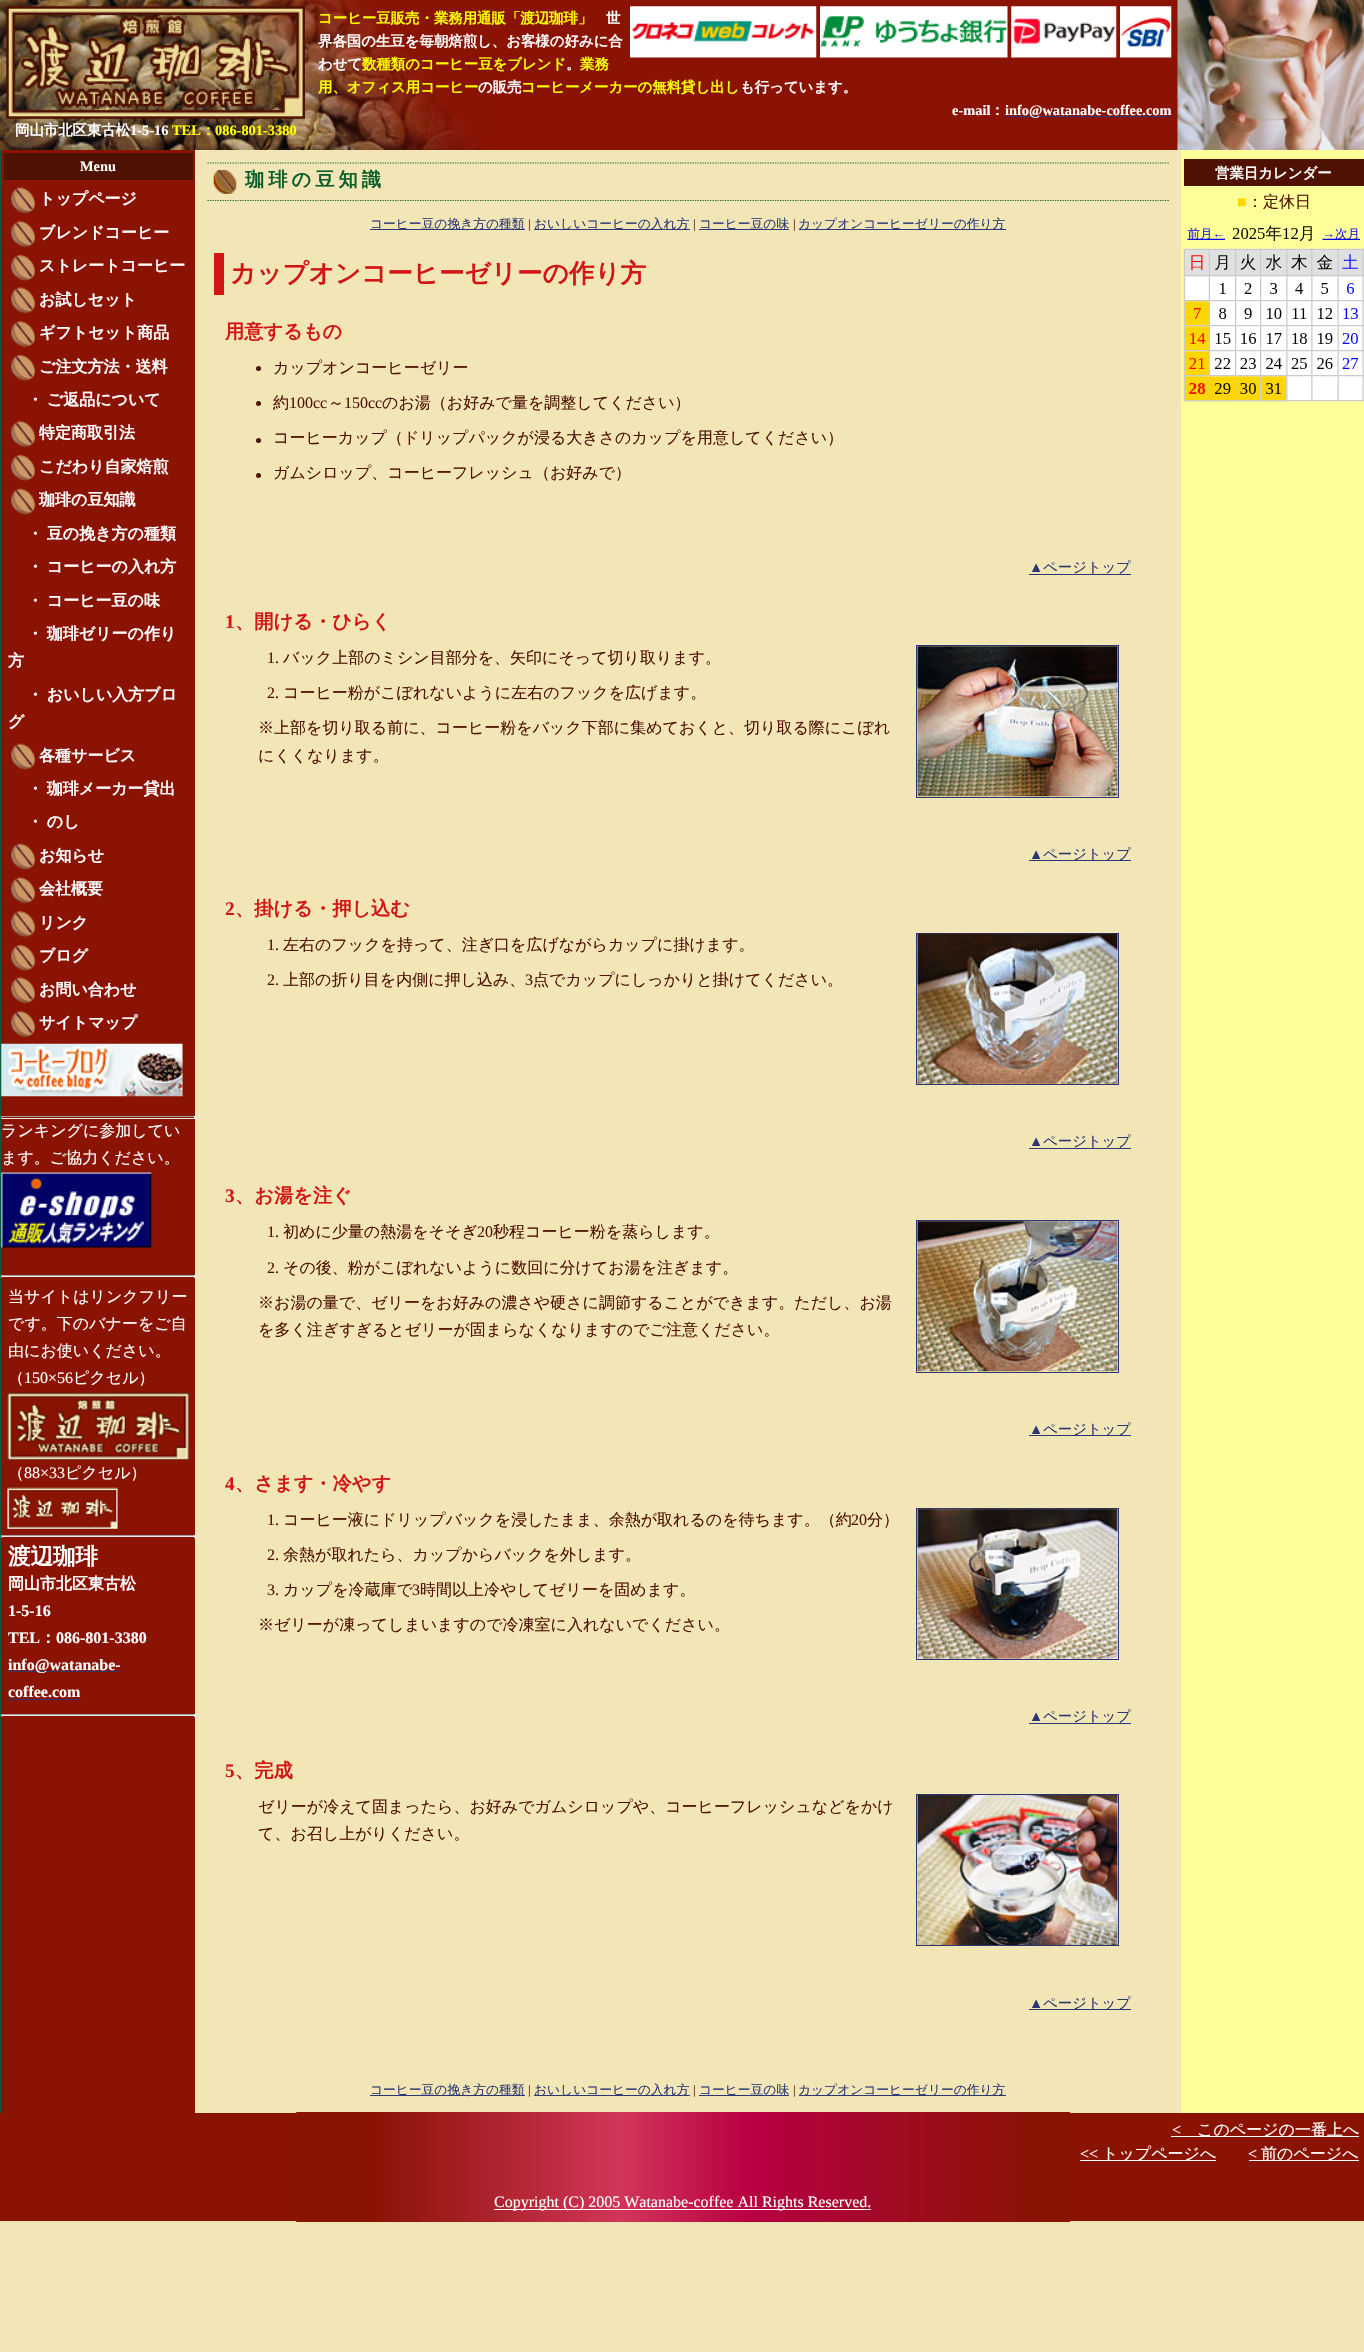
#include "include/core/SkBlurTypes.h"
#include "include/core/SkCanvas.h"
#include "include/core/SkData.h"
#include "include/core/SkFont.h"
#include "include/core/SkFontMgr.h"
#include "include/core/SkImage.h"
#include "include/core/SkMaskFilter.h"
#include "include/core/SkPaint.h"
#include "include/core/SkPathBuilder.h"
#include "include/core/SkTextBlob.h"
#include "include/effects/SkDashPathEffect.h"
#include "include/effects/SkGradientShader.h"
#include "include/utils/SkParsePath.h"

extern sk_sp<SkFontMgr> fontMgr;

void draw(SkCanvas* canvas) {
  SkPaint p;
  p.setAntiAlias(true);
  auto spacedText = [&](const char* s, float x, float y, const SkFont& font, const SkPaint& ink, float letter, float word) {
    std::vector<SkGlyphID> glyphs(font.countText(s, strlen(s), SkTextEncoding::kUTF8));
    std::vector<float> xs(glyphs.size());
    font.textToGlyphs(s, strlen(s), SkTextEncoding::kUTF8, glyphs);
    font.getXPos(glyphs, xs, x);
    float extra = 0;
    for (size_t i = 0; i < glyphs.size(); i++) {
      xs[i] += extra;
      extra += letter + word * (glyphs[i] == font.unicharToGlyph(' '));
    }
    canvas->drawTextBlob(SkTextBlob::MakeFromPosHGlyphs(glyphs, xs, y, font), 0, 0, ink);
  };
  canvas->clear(SkColorSetRGB(242, 230, 182));
  p.setColor(SkColorSetRGB(138, 19, 4));
  canvas->drawRect(SkRect::MakeLTRB(485, 0, 1178, 150), p);
  canvas->drawImageRect(SkImages::DeferredFromEncodedData(SkData::MakeFromFileName("images/1.png")), SkRect::MakeLTRB(0, 0, 485, 150), SkSamplingOptions());
  canvas->drawImageRect(SkImages::DeferredFromEncodedData(SkData::MakeFromFileName("images/2.png")), SkRect::MakeLTRB(630, 6, 817, 58), SkSamplingOptions());
  canvas->drawImageRect(SkImages::DeferredFromEncodedData(SkData::MakeFromFileName("images/3.png")), SkRect::MakeLTRB(820, 6, 1008, 58), SkSamplingOptions());
  canvas->drawImageRect(SkImages::DeferredFromEncodedData(SkData::MakeFromFileName("images/4.png")), SkRect::MakeLTRB(1011, 6, 1117, 58), SkSamplingOptions());
  canvas->drawImageRect(SkImages::DeferredFromEncodedData(SkData::MakeFromFileName("images/5.png")), SkRect::MakeLTRB(1120, 6, 1172, 58), SkSamplingOptions());
  p.setColor(SkColorSetRGB(43, 55, 115));
  canvas->drawRect(SkRect::MakeLTRB(1005, 116, 1171, 117), p);
  canvas->drawImageRect(SkImages::DeferredFromEncodedData(SkData::MakeFromFileName("images/6.png")), SkRect::MakeLTRB(1177, 0, 1364, 150), SkSamplingOptions());
  canvas->drawImageRect(SkImages::DeferredFromEncodedData(SkData::MakeFromFileName("images/7.png")), SkRect::MakeLTRB(6, 6, 305, 119), SkSamplingOptions());
  p.setColor(SkColorSetRGB(10, 92, 71));
  canvas->drawRect(SkRect::MakeLTRB(0, 150, 1, 2113), p);
  p.setColor(SkColorSetRGB(138, 19, 4));
  canvas->drawRect(SkRect::MakeLTRB(1, 150, 195, 2113), p);
  p.setColor(SkColorSetRGB(79, 17, 2));
  canvas->drawRect(SkRect::MakeLTRB(4, 153, 193, 180), p);
  canvas->drawImageRect(SkImages::DeferredFromEncodedData(SkData::MakeFromFileName("images/8.png")), SkRect::MakeLTRB(11, 187, 35, 214), SkSamplingOptions());
  canvas->drawImageRect(SkImages::DeferredFromEncodedData(SkData::MakeFromFileName("images/9.png")), SkRect::MakeLTRB(11, 221, 35, 248), SkSamplingOptions());
  canvas->drawImageRect(SkImages::DeferredFromEncodedData(SkData::MakeFromFileName("images/10.png")), SkRect::MakeLTRB(11, 255, 35, 282), SkSamplingOptions());
  canvas->drawImageRect(SkImages::DeferredFromEncodedData(SkData::MakeFromFileName("images/11.png")), SkRect::MakeLTRB(11, 287, 35, 314), SkSamplingOptions());
  canvas->drawImageRect(SkImages::DeferredFromEncodedData(SkData::MakeFromFileName("images/9.png")), SkRect::MakeLTRB(11, 321, 35, 348), SkSamplingOptions());
  canvas->drawImageRect(SkImages::DeferredFromEncodedData(SkData::MakeFromFileName("images/10.png")), SkRect::MakeLTRB(11, 355, 35, 382), SkSamplingOptions());
  canvas->drawImageRect(SkImages::DeferredFromEncodedData(SkData::MakeFromFileName("images/9.png")), SkRect::MakeLTRB(11, 421, 35, 448), SkSamplingOptions());
  canvas->drawImageRect(SkImages::DeferredFromEncodedData(SkData::MakeFromFileName("images/10.png")), SkRect::MakeLTRB(11, 455, 35, 482), SkSamplingOptions());
  canvas->drawImageRect(SkImages::DeferredFromEncodedData(SkData::MakeFromFileName("images/12.png")), SkRect::MakeLTRB(11, 488, 35, 515), SkSamplingOptions());
  canvas->drawImageRect(SkImages::DeferredFromEncodedData(SkData::MakeFromFileName("images/12.png")), SkRect::MakeLTRB(11, 743, 35, 770), SkSamplingOptions());
  canvas->drawImageRect(SkImages::DeferredFromEncodedData(SkData::MakeFromFileName("images/12.png")), SkRect::MakeLTRB(11, 843, 35, 870), SkSamplingOptions());
  canvas->drawImageRect(SkImages::DeferredFromEncodedData(SkData::MakeFromFileName("images/8.png")), SkRect::MakeLTRB(11, 877, 35, 904), SkSamplingOptions());
  canvas->drawImageRect(SkImages::DeferredFromEncodedData(SkData::MakeFromFileName("images/9.png")), SkRect::MakeLTRB(11, 911, 35, 938), SkSamplingOptions());
  canvas->drawImageRect(SkImages::DeferredFromEncodedData(SkData::MakeFromFileName("images/10.png")), SkRect::MakeLTRB(11, 945, 35, 972), SkSamplingOptions());
  canvas->drawImageRect(SkImages::DeferredFromEncodedData(SkData::MakeFromFileName("images/8.png")), SkRect::MakeLTRB(11, 977, 35, 1004), SkSamplingOptions());
  canvas->drawImageRect(SkImages::DeferredFromEncodedData(SkData::MakeFromFileName("images/9.png")), SkRect::MakeLTRB(11, 1011, 35, 1038), SkSamplingOptions());
  canvas->drawImageRect(SkImages::DeferredFromEncodedData(SkData::MakeFromFileName("images/13.png")), SkRect::MakeLTRB(1, 1043, 183, 1097), SkSamplingOptions());
  p.setColor(SkColorSetRGB(159, 159, 159));
  canvas->drawRect(SkRect::MakeLTRB(1, 1116, 195, 1117), p);
  p.setColor(SkColorSetRGB(238, 238, 238));
  canvas->drawRect(SkRect::MakeLTRB(194, 1116, 195, 1119), p);
  canvas->drawRect(SkRect::MakeLTRB(1, 1118, 195, 1119), p);
  p.setColor(SkColorSetRGB(159, 159, 159));
  canvas->drawRect(SkRect::MakeLTRB(1, 1116, 2, 1119), p);
  canvas->drawImageRect(SkImages::DeferredFromEncodedData(SkData::MakeFromFileName("images/14.png")), SkRect::MakeLTRB(1, 1172, 152, 1248), SkSamplingOptions());
  canvas->drawRect(SkRect::MakeLTRB(1, 1275, 195, 1276), p);
  p.setColor(SkColorSetRGB(238, 238, 238));
  canvas->drawRect(SkRect::MakeLTRB(194, 1275, 195, 1278), p);
  canvas->drawRect(SkRect::MakeLTRB(1, 1276, 195, 1277), p);
  p.setColor(SkColorSetRGB(159, 159, 159));
  canvas->drawRect(SkRect::MakeLTRB(1, 1275, 2, 1278), p);
  canvas->drawImageRect(SkImages::DeferredFromEncodedData(SkData::MakeFromFileName("images/15.png")), SkRect::MakeLTRB(7, 1392, 189, 1460), SkSamplingOptions());
  canvas->drawImageRect(SkImages::DeferredFromEncodedData(SkData::MakeFromFileName("images/16.png")), SkRect::MakeLTRB(7, 1487, 118, 1529), SkSamplingOptions());
  canvas->drawRect(SkRect::MakeLTRB(1, 1535, 195, 1536), p);
  p.setColor(SkColorSetRGB(238, 238, 238));
  canvas->drawRect(SkRect::MakeLTRB(194, 1535, 195, 1538), p);
  canvas->drawRect(SkRect::MakeLTRB(1, 1536, 195, 1537), p);
  p.setColor(SkColorSetRGB(159, 159, 159));
  canvas->drawRect(SkRect::MakeLTRB(1, 1535, 2, 1538), p);
  p.setColor(SkColorSetRGB(43, 55, 115));
  canvas->drawRect(SkRect::MakeLTRB(8, 1671, 120, 1672), p);
  canvas->drawRect(SkRect::MakeLTRB(8, 1699, 80, 1700), p);
  p.setColor(SkColorSetRGB(159, 159, 159));
  canvas->drawRect(SkRect::MakeLTRB(1, 1714, 195, 1715), p);
  p.setColor(SkColorSetRGB(238, 238, 238));
  canvas->drawRect(SkRect::MakeLTRB(194, 1714, 195, 1717), p);
  canvas->drawRect(SkRect::MakeLTRB(1, 1715, 195, 1716), p);
  p.setColor(SkColorSetRGB(159, 159, 159));
  canvas->drawRect(SkRect::MakeLTRB(1, 1714, 2, 1717), p);
  p.setStyle(SkPaint::kStroke_Style);
  p.setStrokeWidth(1.2f);
  p.setColor(SkColorSetRGB(11, 94, 42));
  p.setPathEffect(SkDashPathEffect::Make({{1.25f, 1.25f}}, 0));
  canvas->drawPath(SkPathBuilder().moveTo(207.5f, 163).lineTo(1169, 163).detach(), p);
  p.setPathEffect(nullptr);
  p.setPathEffect(SkDashPathEffect::Make({{1.25f, 1.25f}}, 0));
  canvas->drawPath(SkPathBuilder().moveTo(207.5f, 200.5f).lineTo(1169, 200.5f).detach(), p);
  p.setPathEffect(nullptr);
  canvas->drawImageRect(SkImages::DeferredFromEncodedData(SkData::MakeFromFileName("images/17.png")), SkRect::MakeLTRB(213, 170, 237, 194), SkSamplingOptions());
  p.setStyle(SkPaint::kFill_Style);
  p.setColor(SkColorSetRGB(43, 55, 115));
  canvas->drawRect(SkRect::MakeLTRB(370, 229, 525, 230), p);
  canvas->drawRect(SkRect::MakeLTRB(534, 229, 690, 230), p);
  canvas->drawRect(SkRect::MakeLTRB(699, 229, 789, 230), p);
  canvas->drawRect(SkRect::MakeLTRB(799, 229, 1006, 230), p);
  p.setColor(SkColorSetRGB(210, 21, 21));
  canvas->drawRect(SkRect::MakeLTRB(214, 253, 224, 295), p);
  p.setColor(SkColorSetRGB(79, 17, 2));
  canvas->drawCircle(258.5f, 368.5f, 2.5f, p);
  canvas->drawCircle(258.5f, 403.5f, 2.5f, p);
  canvas->drawCircle(258.5f, 440.5f, 2.5f, p);
  canvas->drawCircle(258.5f, 475.5f, 2.5f, p);
  p.setColor(SkColorSetRGB(43, 55, 115));
  canvas->drawRect(SkRect::MakeLTRB(1029, 574, 1131, 575), p);
  p.setStyle(SkPaint::kStroke_Style);
  p.setStrokeWidth(1);
  canvas->drawRect(SkRect::MakeLTRB(916.5f, 645.5f, 1118.5f, 797.5f), p);
  canvas->drawImageRect(SkImages::DeferredFromEncodedData(SkData::MakeFromFileName("images/18.png")), SkRect::MakeLTRB(917, 646, 1118, 797), SkSamplingOptions());
  p.setStyle(SkPaint::kFill_Style);
  canvas->drawRect(SkRect::MakeLTRB(1029, 860, 1131, 861), p);
  p.setStyle(SkPaint::kStroke_Style);
  canvas->drawRect(SkRect::MakeLTRB(916.5f, 933.5f, 1118.5f, 1084.5f), p);
  canvas->drawImageRect(SkImages::DeferredFromEncodedData(SkData::MakeFromFileName("images/19.png")), SkRect::MakeLTRB(917, 933, 1118, 1084), SkSamplingOptions());
  p.setStyle(SkPaint::kFill_Style);
  canvas->drawRect(SkRect::MakeLTRB(1029, 1148, 1131, 1149), p);
  p.setStyle(SkPaint::kStroke_Style);
  canvas->drawRect(SkRect::MakeLTRB(916.5f, 1220.5f, 1118.5f, 1372.5f), p);
  canvas->drawImageRect(SkImages::DeferredFromEncodedData(SkData::MakeFromFileName("images/20.png")), SkRect::MakeLTRB(917, 1221, 1118, 1372), SkSamplingOptions());
  p.setStyle(SkPaint::kFill_Style);
  canvas->drawRect(SkRect::MakeLTRB(1029, 1435, 1131, 1436), p);
  p.setStyle(SkPaint::kStroke_Style);
  canvas->drawRect(SkRect::MakeLTRB(916.5f, 1508.5f, 1118.5f, 1659.5f), p);
  canvas->drawImageRect(SkImages::DeferredFromEncodedData(SkData::MakeFromFileName("images/21.png")), SkRect::MakeLTRB(917, 1508, 1118, 1659), SkSamplingOptions());
  p.setStyle(SkPaint::kFill_Style);
  canvas->drawRect(SkRect::MakeLTRB(1029, 1723, 1131, 1724), p);
  p.setStyle(SkPaint::kStroke_Style);
  canvas->drawRect(SkRect::MakeLTRB(916.5f, 1794.5f, 1118.5f, 1945.5f), p);
  canvas->drawImageRect(SkImages::DeferredFromEncodedData(SkData::MakeFromFileName("images/22.png")), SkRect::MakeLTRB(917, 1795, 1118, 1945), SkSamplingOptions());
  p.setStyle(SkPaint::kFill_Style);
  canvas->drawRect(SkRect::MakeLTRB(1029, 2009, 1131, 2010), p);
  canvas->drawRect(SkRect::MakeLTRB(370, 2095, 525, 2096), p);
  canvas->drawRect(SkRect::MakeLTRB(534, 2095, 690, 2096), p);
  canvas->drawRect(SkRect::MakeLTRB(699, 2095, 789, 2096), p);
  canvas->drawRect(SkRect::MakeLTRB(799, 2095, 1006, 2096), p);
  p.setColor(SkColorSetRGB(255, 255, 154));
  canvas->drawRect(SkRect::MakeLTRB(1181, 150, 1364, 2113), p);
  p.setColor(SkColorSetRGB(79, 17, 2));
  canvas->drawRect(SkRect::MakeLTRB(1184, 159, 1364, 186), p);
  canvas->drawImageRect(SkImages::DeferredFromEncodedData(SkData::MakeFromFileName("images/23.png")), SkRect::MakeLTRB(1183, 225, 1364, 402), SkSamplingOptions());
  p.setColor(SkColorSetRGB(138, 19, 4));
  canvas->drawRect(SkRect::MakeLTRB(0, 2113, 1364, 2221), p);
  canvas->drawImageRect(SkImages::DeferredFromEncodedData(SkData::MakeFromFileName("images/24.png")), SkRect::MakeLTRB(296, 2112, 1070, 2222), SkSamplingOptions());
  p.setColor(SK_ColorWHITE);
  canvas->drawRect(SkRect::MakeLTRB(1171, 2136, 1359, 2137), p);
  canvas->drawRect(SkRect::MakeLTRB(1080, 2160, 1216, 2161), p);
  canvas->drawRect(SkRect::MakeLTRB(1249, 2160, 1359, 2161), p);
  canvas->drawRect(SkRect::MakeLTRB(494, 2209, 871, 2210), p);
  SkFont font1(fontMgr->matchFamilyStyle("WenQuanYi Zen Hei", SkFontStyle::Bold()), 14.4f);
  font1.setSubpixel(true);
  p.setColor(SkColorSetRGB(255, 255, 0));
  canvas->drawString("コーヒー豆販売・業務用通販「渡辺珈琲」", 318, 23, font1, p);
  p.setColor(SK_ColorWHITE);
  canvas->drawString("世", 606, 23, font1, p);
  canvas->drawString("界各国の生豆を毎朝焙煎し、お客様の好みに合", 318, 46, font1, p);
  canvas->drawString("わせて", 318, 69, font1, p);
  p.setColor(SkColorSetRGB(255, 255, 0));
  canvas->drawString("数種類のコーヒー豆をブレンド", 362, 69, font1, p);
  p.setColor(SK_ColorWHITE);
  canvas->drawString("。", 566, 69, font1, p);
  p.setColor(SkColorSetRGB(255, 255, 0));
  canvas->drawString("業務", 580, 69, font1, p);
  canvas->drawString("用、オフィス用コーヒー", 318, 92, font1, p);
  p.setColor(SK_ColorWHITE);
  canvas->drawString("の販売", 478, 92, font1, p);
  p.setColor(SkColorSetRGB(255, 255, 0));
  canvas->drawString("コーヒーメーカーの無料貸し出し", 521, 92, font1, p);
  p.setColor(SK_ColorWHITE);
  canvas->drawString("も行っています。", 740, 92, font1, p);
  SkFont font2(fontMgr->matchFamilyStyle("Liberation Serif", SkFontStyle::Bold()), 14.4f);
  font2.setSubpixel(true);
  canvas->drawString("e-mail", 952, 115, font2, p);
  canvas->drawString("：", 990, 115, font1, p);
  canvas->drawString("info@watanabe-coffee.com", 1005, 115, font2, p);
  canvas->drawString("岡山市北区東古松", 15, 135, font1, p);
  canvas->drawString("1-5-16", 130, 135, font2, p);
  p.setColor(SkColorSetRGB(255, 255, 0));
  canvas->drawString("TEL", 172, 135, font2, p);
  canvas->drawString("：", 201, 135, font1, p);
  canvas->drawString("086-801-3380", 215, 135, font2, p);
  p.setColor(SK_ColorWHITE);
  canvas->drawString("Menu", 80, 171, font2, p);
  SkFont font3(fontMgr->matchFamilyStyle("WenQuanYi Zen Hei", SkFontStyle::Bold()), 16);
  font3.setSubpixel(true);
  canvas->drawString("トップページ", 39, 204, font3, p);
  canvas->drawString("ブレンドコーヒー", 39, 238, font3, p);
  canvas->drawString("ストレートコーヒー", 39, 271, font3, p);
  canvas->drawString("お試しセット", 39, 305, font3, p);
  canvas->drawString("ギフトセット商品", 39, 338, font3, p);
  canvas->drawString("ご注文方法・送料", 39, 372, font3, p);
  spacedText("・ ご返品について", 27, 405, font3, p, 0, -1);
  canvas->drawString("特定商取引法", 39, 438, font3, p);
  canvas->drawString("こだわり自家焙煎", 39, 472, font3, p);
  canvas->drawString("珈琲の豆知識", 39, 505, font3, p);
  spacedText("・ 豆の挽き方の種類", 27, 539, font3, p, 0, -1);
  spacedText("・ コーヒーの入れ方", 27, 572, font3, p, 0, -1);
  spacedText("・ コーヒー豆の味", 27, 606, font3, p, 0, -1);
  spacedText("・ 珈琲ゼリーの作り", 27, 639, font3, p, 0, -1);
  canvas->drawString("方", 8, 666, font3, p);
  spacedText("・ おいしい入方ブロ", 27, 700, font3, p, 0, -1);
  canvas->drawString("グ", 8, 727, font3, p);
  canvas->drawString("各種サービス", 39, 761, font3, p);
  spacedText("・ 珈琲メーカー貸出", 27, 794, font3, p, 0, -1);
  spacedText("・ のし", 27, 827, font3, p, 0, -1);
  canvas->drawString("お知らせ", 39, 861, font3, p);
  canvas->drawString("会社概要", 39, 894, font3, p);
  canvas->drawString("リンク", 39, 928, font3, p);
  canvas->drawString("ブログ", 39, 961, font3, p);
  canvas->drawString("お問い合わせ", 39, 995, font3, p);
  canvas->drawString("サイトマップ", 39, 1028, font3, p);
  SkFont font4(fontMgr->matchFamilyStyle("WenQuanYi Zen Hei", SkFontStyle(500, SkFontStyle::kNormal_Width, SkFontStyle::kUpright_Slant)), 16);
  font4.setSubpixel(true);
  canvas->drawString("ランキングに参加してい", 1, 1136, font4, p);
  canvas->drawString("ます。ご協力ください。", 1, 1163, font4, p);
  canvas->drawString("当サイトはリンクフリー", 8, 1302, font4, p);
  canvas->drawString("です。下のバナーをご自", 8, 1329, font4, p);
  canvas->drawString("由にお使いください。", 8, 1356, font4, p);
  canvas->drawString("（", 8, 1383, font4, p);
  SkFont font5(fontMgr->matchFamilyStyle("Liberation Serif", SkFontStyle::Normal()), 16);
  font5.setSubpixel(true);
  canvas->drawString("150×56", 24, 1383, font5, p);
  canvas->drawString("ピクセル）", 73, 1383, font4, p);
  canvas->drawString("（", 8, 1478, font4, p);
  canvas->drawString("88×33", 24, 1478, font5, p);
  canvas->drawString("ピクセル）", 65, 1478, font4, p);
  SkFont font6(fontMgr->matchFamilyStyle("WenQuanYi Zen Hei", SkFontStyle::Bold()), 22.5f);
  font6.setSubpixel(true);
  canvas->drawString("渡辺珈琲", 8, 1564, font6, p);
  canvas->drawString("岡山市北区東古松", 8, 1589, font3, p);
  SkFont font7(fontMgr->matchFamilyStyle("Liberation Serif", SkFontStyle::Bold()), 16);
  font7.setSubpixel(true);
  canvas->drawString("1-5-16", 8, 1616, font7, p);
  canvas->drawString("TEL", 8, 1643, font7, p);
  canvas->drawString("：", 40, 1643, font3, p);
  canvas->drawString("086-801-3380", 56, 1643, font7, p);
  canvas->drawString("info@watanabe-", 8, 1670, font7, p);
  canvas->drawString("coffee.com", 8, 1697, font7, p);
  SkFont font8(fontMgr->matchFamilyStyle("WenQuanYi Zen Hei", SkFontStyle::Bold()), 19.25f);
  font8.setSubpixel(true);
  p.setColor(SkColorSetRGB(11, 94, 42));
  spacedText("珈琲の豆知識", 245, 186, font8, p, 4, 0);
  SkFont font9(fontMgr->matchFamilyStyle("WenQuanYi Zen Hei", SkFontStyle(500, SkFontStyle::kNormal_Width, SkFontStyle::kUpright_Slant)), 12.75f);
  font9.setSubpixel(true);
  p.setColor(SkColorSetRGB(43, 55, 115));
  canvas->drawString("コーヒー豆の挽き方の種類", 370, 228, font9, p);
  SkFont font10(fontMgr->matchFamilyStyle("Liberation Serif", SkFontStyle::Normal()), 12.75f);
  font10.setSubpixel(true);
  p.setColor(SkColorSetRGB(79, 17, 2));
  canvas->drawString("|", 528, 228, font10, p);
  p.setColor(SkColorSetRGB(43, 55, 115));
  canvas->drawString("おいしいコーヒーの入れ方", 534, 228, font9, p);
  p.setColor(SkColorSetRGB(79, 17, 2));
  canvas->drawString("|", 693, 228, font10, p);
  p.setColor(SkColorSetRGB(43, 55, 115));
  canvas->drawString("コーヒー豆の味", 699, 228, font9, p);
  p.setColor(SkColorSetRGB(79, 17, 2));
  canvas->drawString("|", 793, 228, font10, p);
  p.setColor(SkColorSetRGB(43, 55, 115));
  canvas->drawString("カップオンコーヒーゼリーの作り方", 798, 228, font9, p);
  SkFont font11(fontMgr->matchFamilyStyle("WenQuanYi Zen Hei", SkFontStyle::Bold()), 25.6f);
  font11.setSubpixel(true);
  p.setColor(SkColorSetRGB(210, 21, 21));
  canvas->drawString("カップオンコーヒーゼリーの作り方", 230, 282, font11, p);
  canvas->drawString("用意するもの", 225, 338, font8, p);
  p.setColor(SkColorSetRGB(79, 17, 2));
  canvas->drawString("カップオンコーヒーゼリー", 273, 373, font4, p);
  canvas->drawString("約", 273, 408, font4, p);
  canvas->drawString("100cc", 289, 408, font5, p);
  canvas->drawString("～", 328, 408, font4, p);
  canvas->drawString("150cc", 344, 408, font5, p);
  canvas->drawString("のお湯（お好みで量を調整してください）", 382, 408, font4, p);
  canvas->drawString("コーヒーカップ（ドリップパックが浸る大きさのカップを用意してください）", 273, 443, font4, p);
  canvas->drawString("ガムシロップ、コーヒーフレッシュ（お好みで）", 273, 478, font4, p);
  SkFont font12(fontMgr->matchFamilyStyle("Liberation Serif", SkFontStyle::Normal()), 14.4f);
  font12.setSubpixel(true);
  p.setColor(SkColorSetRGB(43, 55, 115));
  canvas->drawString("▲", 1029, 572, font12, p);
  SkFont font13(fontMgr->matchFamilyStyle("WenQuanYi Zen Hei", SkFontStyle(500, SkFontStyle::kNormal_Width, SkFontStyle::kUpright_Slant)), 14.4f);
  font13.setSubpixel(true);
  canvas->drawString("ページトップ", 1043, 572, font13, p);
  SkFont font14(fontMgr->matchFamilyStyle("Liberation Serif", SkFontStyle::Bold()), 19.25f);
  font14.setSubpixel(true);
  p.setColor(SkColorSetRGB(210, 21, 21));
  canvas->drawString("1", 225, 628, font14, p);
  canvas->drawString("、開ける・ひらく", 235, 628, font8, p);
  p.setColor(SkColorSetRGB(79, 17, 2));
  canvas->drawString("1.", 267, 663, font5, p);
  canvas->drawString("バック上部のミシン目部分を、矢印にそって切り取ります。", 283, 663, font4, p);
  canvas->drawString("2.", 267, 698, font5, p);
  canvas->drawString("コーヒー粉がこぼれないように左右のフックを広げます。", 283, 698, font4, p);
  canvas->drawString("※上部を切り取る前に、コーヒー粉をバック下部に集めておくと、切り取る際にこぼれ", 258, 733, font4, p);
  canvas->drawString("にくくなります。", 258, 761, font4, p);
  p.setColor(SkColorSetRGB(43, 55, 115));
  canvas->drawString("▲", 1029, 859, font12, p);
  canvas->drawString("ページトップ", 1043, 859, font13, p);
  p.setColor(SkColorSetRGB(210, 21, 21));
  canvas->drawString("2", 225, 915, font14, p);
  canvas->drawString("、掛ける・押し込む", 235, 915, font8, p);
  p.setColor(SkColorSetRGB(79, 17, 2));
  canvas->drawString("1.", 267, 950, font5, p);
  canvas->drawString("左右のフックを持って、注ぎ口を広げながらカップに掛けます。", 283, 950, font4, p);
  canvas->drawString("2.", 267, 985, font5, p);
  canvas->drawString("上部の折り目を内側に押し込み、", 283, 985, font4, p);
  canvas->drawString("3", 525, 985, font5, p);
  canvas->drawString("点でカップにしっかりと掛けてください。", 533, 985, font4, p);
  p.setColor(SkColorSetRGB(43, 55, 115));
  canvas->drawString("▲", 1029, 1146, font12, p);
  canvas->drawString("ページトップ", 1043, 1146, font13, p);
  p.setColor(SkColorSetRGB(210, 21, 21));
  canvas->drawString("3", 225, 1202, font14, p);
  canvas->drawString("、お湯を注ぐ", 235, 1202, font8, p);
  p.setColor(SkColorSetRGB(79, 17, 2));
  canvas->drawString("1.", 267, 1237, font5, p);
  canvas->drawString("初めに少量の熱湯をそそぎ", 283, 1237, font4, p);
  canvas->drawString("20", 477, 1237, font5, p);
  canvas->drawString("秒程コーヒー粉を蒸らします。", 493, 1237, font4, p);
  canvas->drawString("2.", 267, 1273, font5, p);
  canvas->drawString("その後、粉がこぼれないように数回に分けてお湯を注ぎます。", 283, 1273, font4, p);
  canvas->drawString("※お湯の量で、ゼリーをお好みの濃さや硬さに調節することができます。ただし、お湯", 258, 1308, font4, p);
  canvas->drawString("を多く注ぎすぎるとゼリーが固まらなくなりますのでご注意ください。", 258, 1335, font4, p);
  p.setColor(SkColorSetRGB(43, 55, 115));
  canvas->drawString("▲", 1029, 1434, font12, p);
  canvas->drawString("ページトップ", 1043, 1434, font13, p);
  p.setColor(SkColorSetRGB(210, 21, 21));
  canvas->drawString("4", 225, 1490, font14, p);
  canvas->drawString("、さます・冷やす", 235, 1490, font8, p);
  p.setColor(SkColorSetRGB(79, 17, 2));
  canvas->drawString("1.", 267, 1525, font5, p);
  canvas->drawString("コーヒー液にドリップバックを浸したまま、余熱が取れるのを待ちます。（約", 283, 1525, font4, p);
  canvas->drawString("20", 851, 1525, font5, p);
  canvas->drawString("分）", 867, 1525, font4, p);
  canvas->drawString("2.", 267, 1560, font5, p);
  canvas->drawString("余熱が取れたら、カップからバックを外します。", 283, 1560, font4, p);
  canvas->drawString("3.", 267, 1595, font5, p);
  canvas->drawString("カップを冷蔵庫で", 283, 1595, font4, p);
  canvas->drawString("3", 412, 1595, font5, p);
  canvas->drawString("時間以上冷やしてゼリーを固めます。", 420, 1595, font4, p);
  canvas->drawString("※ゼリーが凍ってしまいますので冷凍室に入れないでください。", 258, 1630, font4, p);
  p.setColor(SkColorSetRGB(43, 55, 115));
  canvas->drawString("▲", 1029, 1721, font12, p);
  canvas->drawString("ページトップ", 1043, 1721, font13, p);
  p.setColor(SkColorSetRGB(210, 21, 21));
  canvas->drawString("5", 225, 1777, font14, p);
  canvas->drawString("、完成", 235, 1777, font8, p);
  p.setColor(SkColorSetRGB(79, 17, 2));
  canvas->drawString("ゼリーが冷えて固まったら、お好みでガムシロップや、コーヒーフレッシュなどをかけ", 258, 1812, font4, p);
  canvas->drawString("て、お召し上がりください。", 258, 1839, font4, p);
  p.setColor(SkColorSetRGB(43, 55, 115));
  canvas->drawString("▲", 1029, 2008, font12, p);
  canvas->drawString("ページトップ", 1043, 2008, font13, p);
  canvas->drawString("コーヒー豆の挽き方の種類", 370, 2094, font9, p);
  p.setColor(SkColorSetRGB(79, 17, 2));
  canvas->drawString("|", 528, 2094, font10, p);
  p.setColor(SkColorSetRGB(43, 55, 115));
  canvas->drawString("おいしいコーヒーの入れ方", 534, 2094, font9, p);
  p.setColor(SkColorSetRGB(79, 17, 2));
  canvas->drawString("|", 693, 2094, font10, p);
  p.setColor(SkColorSetRGB(43, 55, 115));
  canvas->drawString("コーヒー豆の味", 699, 2094, font9, p);
  p.setColor(SkColorSetRGB(79, 17, 2));
  canvas->drawString("|", 793, 2094, font10, p);
  p.setColor(SkColorSetRGB(43, 55, 115));
  canvas->drawString("カップオンコーヒーゼリーの作り方", 798, 2094, font9, p);
  p.setColor(SK_ColorWHITE);
  canvas->drawString("営業日カレンダー", 1215, 178, font1, p);
  p.setColor(SkColorSetRGB(255, 215, 0));
  canvas->drawString("■", 1237, 207, font5, p);
  p.setColor(SkColorSetRGB(79, 17, 2));
  canvas->drawString("：定休日", 1247, 207, font4, p);
  p.setColor(SK_ColorWHITE);
  canvas->drawString("<", 1172, 2135, font5, p);
  canvas->drawString("このページの一番上へ", 1197, 2135, font4, p);
  canvas->drawString("<<", 1080, 2159, font5, p);
  canvas->drawString("トップページへ", 1102, 2159, font4, p);
  canvas->drawString("<", 1248, 2159, font5, p);
  canvas->drawString("前のページへ", 1261, 2159, font4, p);
  canvas->drawString("Copyright (C) 2005 Watanabe-coffee All Rights Reserved.", 494, 2207, font5, p);
}
